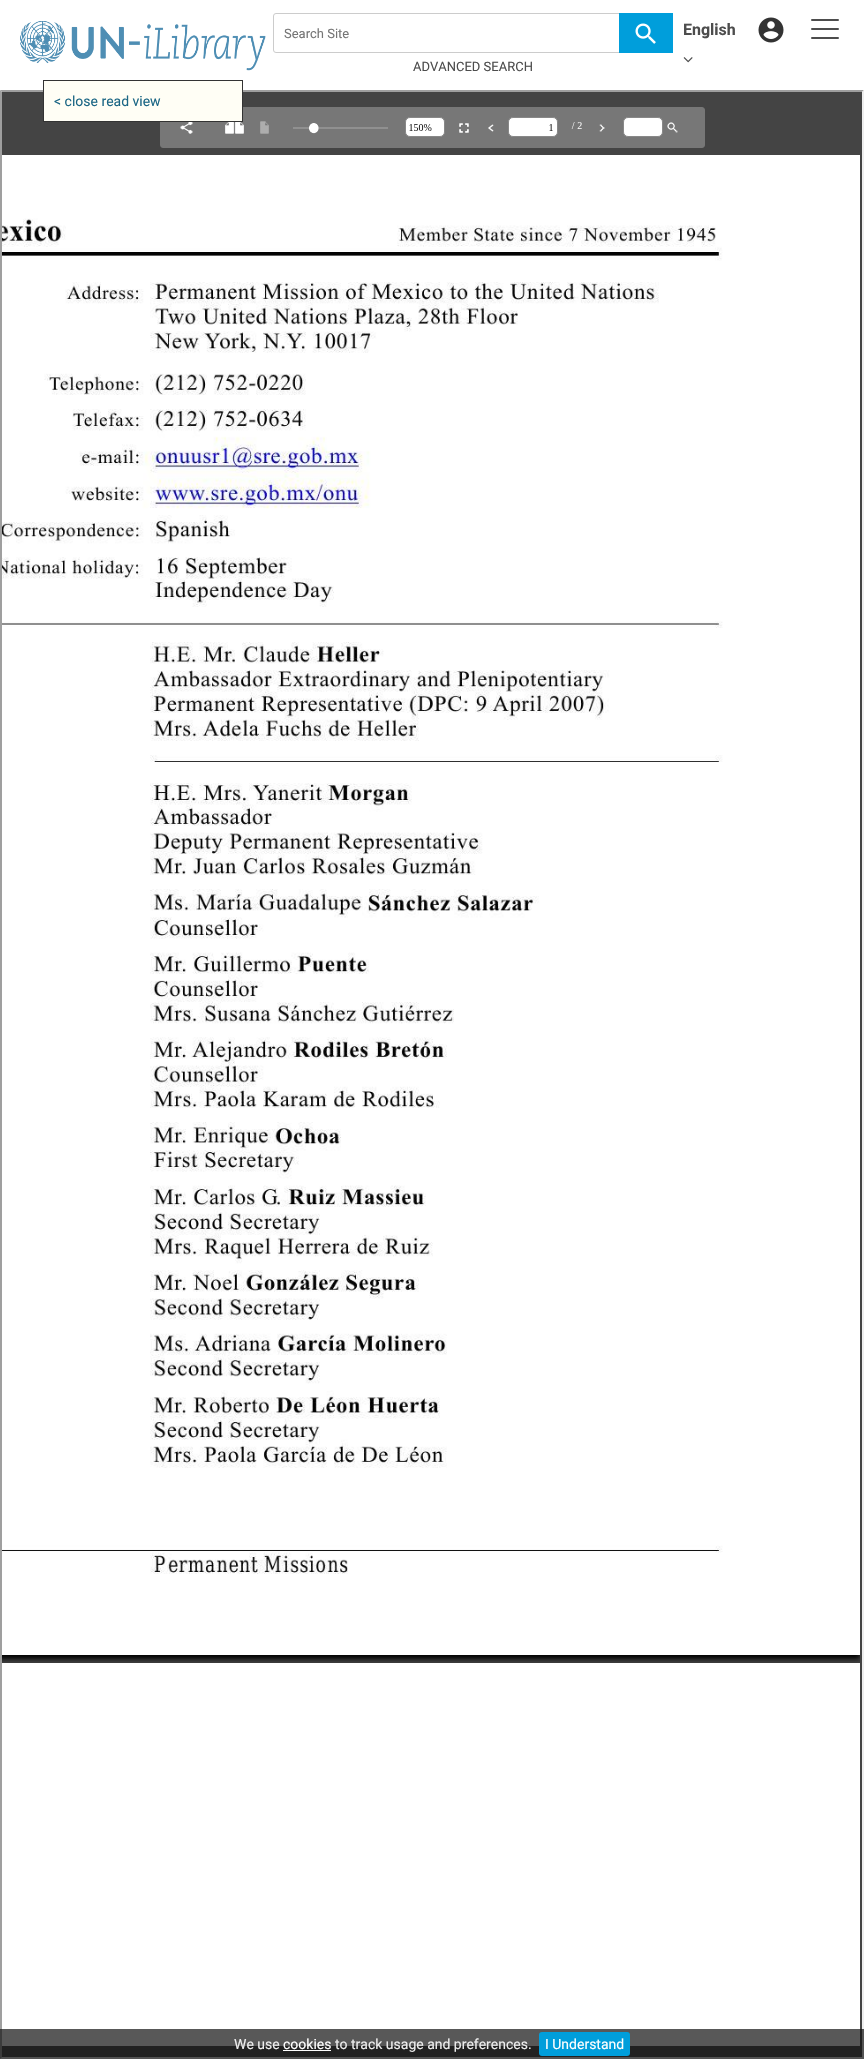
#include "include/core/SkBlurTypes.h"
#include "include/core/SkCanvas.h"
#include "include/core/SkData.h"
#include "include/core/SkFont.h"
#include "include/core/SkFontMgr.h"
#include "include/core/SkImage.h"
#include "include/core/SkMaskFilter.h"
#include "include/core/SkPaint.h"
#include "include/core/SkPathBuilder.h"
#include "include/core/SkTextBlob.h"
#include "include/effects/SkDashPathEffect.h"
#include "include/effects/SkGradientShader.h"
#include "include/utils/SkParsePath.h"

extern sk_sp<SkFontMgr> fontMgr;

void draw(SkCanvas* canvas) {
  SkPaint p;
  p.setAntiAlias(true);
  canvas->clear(SK_ColorWHITE);
  canvas->drawImageRect(SkImages::DeferredFromEncodedData(SkData::MakeFromFileName("images/1.png")), SkRect::MakeLTRB(20, 21, 266, 71), SkSamplingOptions());
  p.setStyle(SkPaint::kStroke_Style);
  p.setStrokeWidth(1);
  p.setColor(SkColorSetRGB(204, 204, 204));
  canvas->drawRoundRect(SkRect::MakeLTRB(273.5f, 13.5f, 672.5f, 52.5f), 2.5f, 2.5f, p);
  p.setStyle(SkPaint::kFill_Style);
  p.setColor(SkColorSetRGB(0, 158, 219));
  canvas->drawRect(SkRect::MakeLTRB(619, 13, 673, 53), p);
  canvas->drawImageRect(SkImages::DeferredFromEncodedData(SkData::MakeFromFileName("images/2.png")), SkRect::MakeLTRB(635, 23, 656, 44), SkSamplingOptions());
  canvas->drawImageRect(SkImages::DeferredFromEncodedData(SkData::MakeFromFileName("images/3.png")), SkRect::MakeLTRB(683, 57, 693, 63), SkSamplingOptions());
  canvas->drawImageRect(SkImages::DeferredFromEncodedData(SkData::MakeFromFileName("images/4.png")), SkRect::MakeLTRB(758, 17, 784, 43), SkSamplingOptions());
  p.setColor(SkColorSetRGB(77, 77, 77));
  canvas->drawRoundRect(SkRect::MakeLTRB(811, 19, 839, 21), 1, 1, p);
  canvas->drawRoundRect(SkRect::MakeLTRB(811, 28, 839, 30), 1, 1, p);
  canvas->drawRoundRect(SkRect::MakeLTRB(811, 37, 839, 39), 1, 1, p);
  p.setColor(SkColorSetRGB(159, 159, 159));
  canvas->drawPath(SkPathBuilder().moveTo(0, 90).lineTo(864, 90).lineTo(862, 92).lineTo(2, 92).close().detach(), p);
  p.setColor(SkColorSetRGB(238, 238, 238));
  canvas->drawPath(SkPathBuilder().moveTo(864, 90).lineTo(864, 2059).lineTo(862, 2057).lineTo(862, 92).close().detach(), p);
  canvas->drawPath(SkPathBuilder().moveTo(864, 2059).lineTo(0, 2059).lineTo(2, 2057).lineTo(862, 2057).close().detach(), p);
  p.setColor(SkColorSetRGB(159, 159, 159));
  canvas->drawPath(SkPathBuilder().moveTo(0, 2059).lineTo(0, 90).lineTo(2, 92).lineTo(2, 2057).close().detach(), p);
  canvas->drawImageRect(SkImages::DeferredFromEncodedData(SkData::MakeFromFileName("images/5.png")), SkRect::MakeLTRB(2, 92, 862, 2057), SkSamplingOptions());
  p.setColor(SkColorSetRGB(255, 254, 245));
  canvas->drawRect(SkRect::MakeLTRB(43.5f, 80.5f, 242.5f, 121.5f), p);
  p.setStyle(SkPaint::kStroke_Style);
  p.setColor(SkColorSetRGB(51, 51, 51));
  canvas->drawRect(SkRect::MakeLTRB(43.5f, 80.5f, 242.5f, 121.5f), p);
  p.setStyle(SkPaint::kFill_Style);
  p.setColor(SkColorSetARGB(179, 17, 17, 17));
  canvas->drawRect(SkRect::MakeLTRB(0, 2029, 864, 2059), p);
  p.setColor(SK_ColorWHITE);
  canvas->drawRect(SkRect::MakeLTRB(283, 2050, 331, 2051), p);
  p.setColor(SkColorSetRGB(0, 158, 219));
  canvas->drawRoundRect(SkRect::MakeLTRB(539, 2032, 630, 2056), 3, 3, p);
  SkFont font1(fontMgr->matchFamilyStyle("Roboto", SkFontStyle::Normal()), 13);
  font1.setSubpixel(true);
  p.setColor(SkColorSetRGB(117, 117, 117));
  canvas->drawString("Search Site", 284, 38, font1, p);
  p.setColor(SkColorSetRGB(77, 77, 77));
  canvas->drawString("ADVANCED SEARCH", 413, 71, font1, p);
  SkFont font2(fontMgr->matchFamilyStyle("Roboto", SkFontStyle::Bold()), 16);
  font2.setSubpixel(true);
  canvas->drawString("English", 683, 35, font2, p);
  SkFont font3(fontMgr->matchFamilyStyle("Roboto", SkFontStyle::Normal()), 14);
  font3.setSubpixel(true);
  p.setColor(SkColorSetRGB(27, 102, 133));
  canvas->drawString("< close read view", 54, 106, font3, p);
  p.setColor(SkColorSetRGB(238, 238, 238));
  canvas->drawString("We use", 234, 2049, font3, p);
  p.setColor(SK_ColorWHITE);
  canvas->drawString("cookies", 283, 2049, font3, p);
  p.setColor(SkColorSetRGB(238, 238, 238));
  canvas->drawString("to track usage and preferences.", 335, 2049, font3, p);
  p.setColor(SK_ColorWHITE);
  canvas->drawString("I Understand", 545, 2049, font3, p);
}
